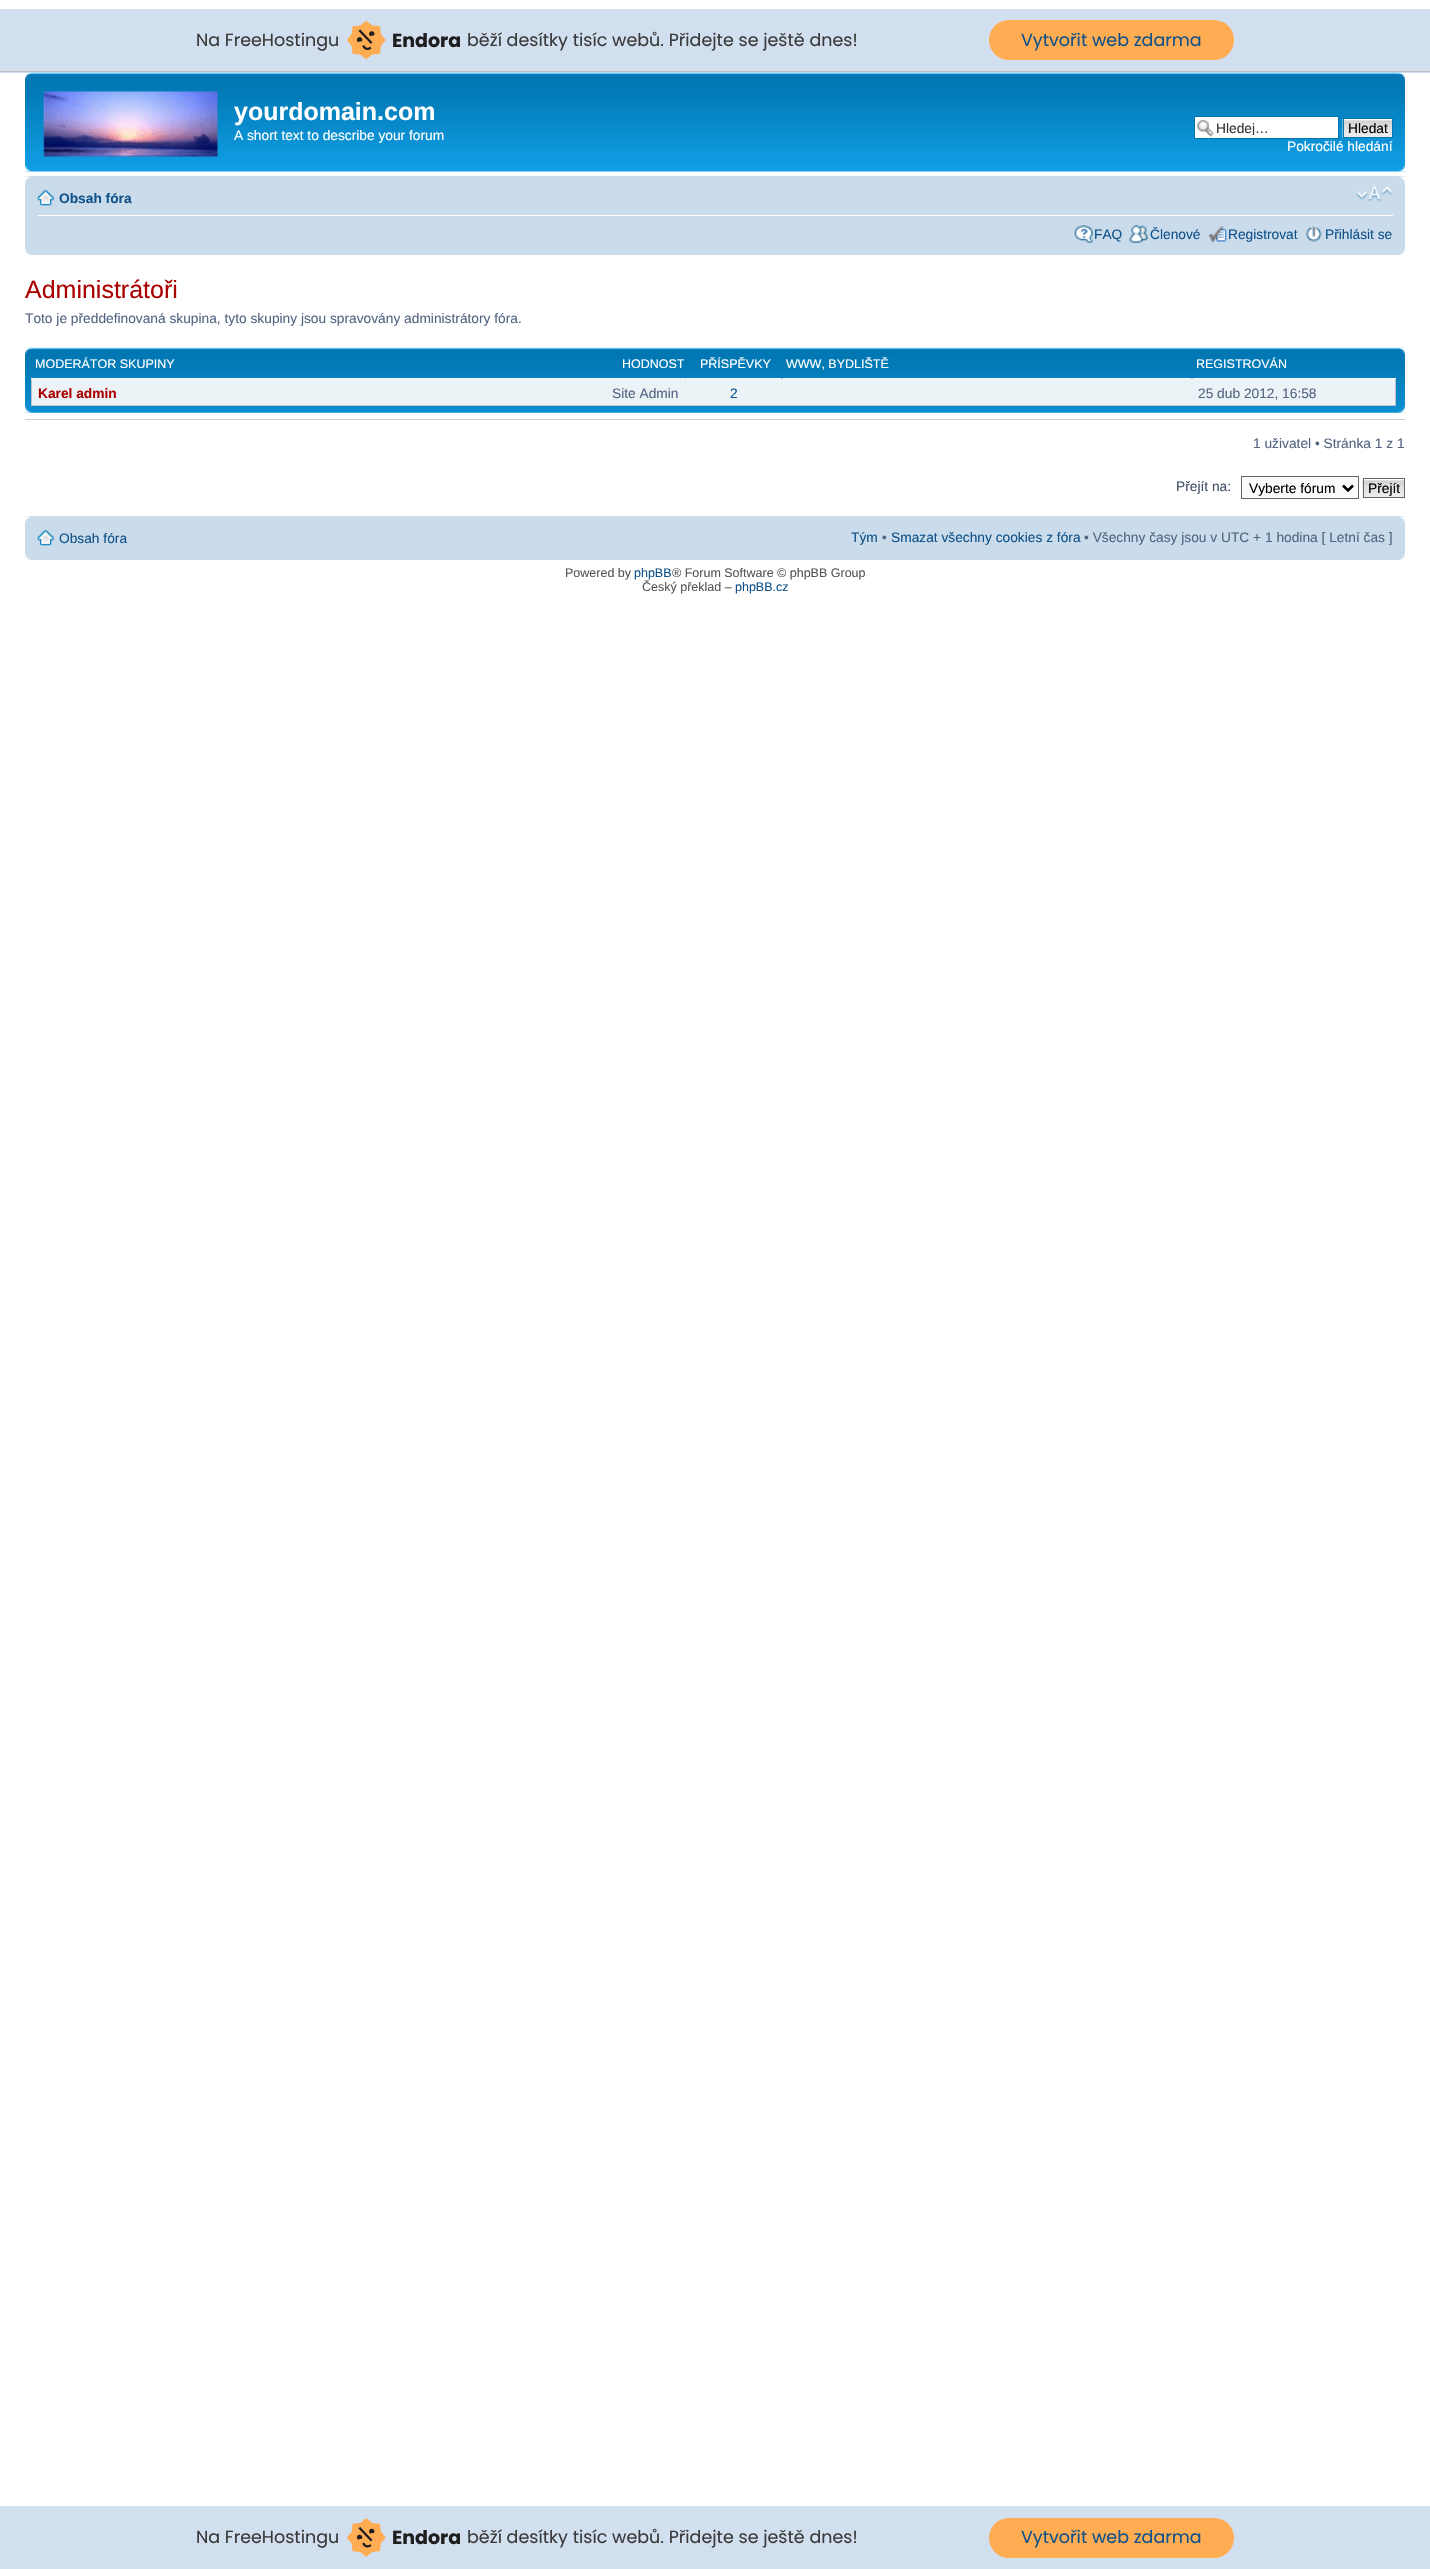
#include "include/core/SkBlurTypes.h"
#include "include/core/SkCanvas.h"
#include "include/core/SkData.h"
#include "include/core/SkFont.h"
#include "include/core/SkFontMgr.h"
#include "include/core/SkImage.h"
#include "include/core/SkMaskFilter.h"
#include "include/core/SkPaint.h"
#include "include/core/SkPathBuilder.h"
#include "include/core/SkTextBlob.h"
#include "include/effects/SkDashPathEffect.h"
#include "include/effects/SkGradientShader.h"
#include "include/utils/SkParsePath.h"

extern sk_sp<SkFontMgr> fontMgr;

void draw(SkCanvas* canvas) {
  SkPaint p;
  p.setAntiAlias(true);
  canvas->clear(SK_ColorWHITE);
  p.setColor(SkColorSetRGB(210, 223, 239));
  canvas->drawRect(SkRect::MakeLTRB(0, 9, 1430, 73), p);
  p.setColor(SkColorSetRGB(190, 191, 196));
  canvas->drawRect(SkRect::MakeLTRB(0, 71, 1430, 72), p);
  canvas->drawImageRect(SkImages::DeferredFromEncodedData(SkData::MakeFromFileName("images/1.png")), SkRect::MakeLTRB(347, 20, 386, 60), SkSamplingOptions());
  p.setColor(SkColorSetRGB(255, 172, 82));
  canvas->drawRoundRect(SkRect::MakeLTRB(989, 20, 1234, 60), 20, 20, p);
  canvas->drawImageRect(SkImages::DeferredFromEncodedData(SkData::MakeFromFileName("images/2.png")), SkRect::MakeLTRB(25, 72, 1405, 172), SkSamplingOptions());
  canvas->drawImageRect(SkImages::DeferredFromEncodedData(SkData::MakeFromFileName("images/3.png")), SkRect::MakeLTRB(25, 72, 32, 79), SkSamplingOptions());
  canvas->drawImageRect(SkImages::DeferredFromEncodedData(SkData::MakeFromFileName("images/4.png")), SkRect::MakeLTRB(1398, 72, 1405, 79), SkSamplingOptions());
  canvas->drawImageRect(SkImages::DeferredFromEncodedData(SkData::MakeFromFileName("images/5.png")), SkRect::MakeLTRB(43, 91, 218, 157), SkSamplingOptions());
  p.setColor(SK_ColorWHITE);
  canvas->drawRect(SkRect::MakeLTRB(1195, 117, 1338, 138), p);
  canvas->drawImageRect(SkImages::DeferredFromEncodedData(SkData::MakeFromFileName("images/6.png")), SkRect::MakeLTRB(1197, 120, 1214, 137), SkSamplingOptions());
  p.setStyle(SkPaint::kStroke_Style);
  p.setStrokeWidth(1);
  p.setColor(SkColorSetRGB(0, 117, 176));
  canvas->drawRect(SkRect::MakeLTRB(1194.5f, 116.5f, 1338.5f, 138.5f), p);
  canvas->drawImageRect(SkImages::DeferredFromEncodedData(SkData::MakeFromFileName("images/7.png")), SkRect::MakeLTRB(1342, 119, 1392, 138), SkSamplingOptions());
  canvas->drawRect(SkRect::MakeLTRB(1343.5f, 118.5f, 1392.5f, 137.5f), p);
  canvas->drawImageRect(SkImages::DeferredFromEncodedData(SkData::MakeFromFileName("images/8.png")), SkRect::MakeLTRB(25, 165, 32, 172), SkSamplingOptions());
  canvas->drawImageRect(SkImages::DeferredFromEncodedData(SkData::MakeFromFileName("images/9.png")), SkRect::MakeLTRB(1398, 165, 1405, 172), SkSamplingOptions());
  p.setStyle(SkPaint::kFill_Style);
  p.setColor(SkColorSetRGB(202, 220, 235));
  canvas->drawRect(SkRect::MakeLTRB(25, 176, 1405, 255), p);
  canvas->drawImageRect(SkImages::DeferredFromEncodedData(SkData::MakeFromFileName("images/10.png")), SkRect::MakeLTRB(25, 176, 31, 183), SkSamplingOptions());
  canvas->drawImageRect(SkImages::DeferredFromEncodedData(SkData::MakeFromFileName("images/11.png")), SkRect::MakeLTRB(1399, 176, 1405, 183), SkSamplingOptions());
  p.setColor(SK_ColorWHITE);
  canvas->drawRect(SkRect::MakeLTRB(38, 215, 1393, 216), p);
  canvas->drawImageRect(SkImages::DeferredFromEncodedData(SkData::MakeFromFileName("images/12.png")), SkRect::MakeLTRB(37, 190, 54, 206), SkSamplingOptions());
  canvas->drawImageRect(SkImages::DeferredFromEncodedData(SkData::MakeFromFileName("images/13.png")), SkRect::MakeLTRB(1356, 186, 1393, 202), SkSamplingOptions());
  canvas->drawImageRect(SkImages::DeferredFromEncodedData(SkData::MakeFromFileName("images/14.png")), SkRect::MakeLTRB(1074, 225, 1094, 243), SkSamplingOptions());
  canvas->drawImageRect(SkImages::DeferredFromEncodedData(SkData::MakeFromFileName("images/15.png")), SkRect::MakeLTRB(1128, 225, 1149, 243), SkSamplingOptions());
  canvas->drawImageRect(SkImages::DeferredFromEncodedData(SkData::MakeFromFileName("images/16.png")), SkRect::MakeLTRB(1208, 226, 1227, 243), SkSamplingOptions());
  canvas->drawImageRect(SkImages::DeferredFromEncodedData(SkData::MakeFromFileName("images/17.png")), SkRect::MakeLTRB(1306, 226, 1322, 242), SkSamplingOptions());
  canvas->drawImageRect(SkImages::DeferredFromEncodedData(SkData::MakeFromFileName("images/18.png")), SkRect::MakeLTRB(25, 249, 31, 255), SkSamplingOptions());
  canvas->drawImageRect(SkImages::DeferredFromEncodedData(SkData::MakeFromFileName("images/19.png")), SkRect::MakeLTRB(1399, 249, 1405, 255), SkSamplingOptions());
  canvas->drawImageRect(SkImages::DeferredFromEncodedData(SkData::MakeFromFileName("images/20.png")), SkRect::MakeLTRB(25, 347, 1405, 413), SkSamplingOptions());
  canvas->drawImageRect(SkImages::DeferredFromEncodedData(SkData::MakeFromFileName("images/21.png")), SkRect::MakeLTRB(25, 347, 32, 354), SkSamplingOptions());
  canvas->drawImageRect(SkImages::DeferredFromEncodedData(SkData::MakeFromFileName("images/22.png")), SkRect::MakeLTRB(1398, 347, 1405, 354), SkSamplingOptions());
  p.setColor(SkColorSetRGB(236, 243, 247));
  canvas->drawRect(SkRect::MakeLTRB(31.5f, 378.5f, 1395.5f, 405.5f), p);
  p.setStyle(SkPaint::kStroke_Style);
  p.setColor(SkColorSetRGB(191, 193, 207));
  canvas->drawRect(SkRect::MakeLTRB(31.5f, 378.5f, 1395.5f, 405.5f), p);
  p.setStyle(SkPaint::kFill_Style);
  p.setColor(SkColorSetRGB(250, 250, 250));
  canvas->drawRect(SkRect::MakeLTRB(783, 378, 1191, 379), p);
  canvas->drawRect(SkRect::MakeLTRB(31, 378, 685, 379), p);
  canvas->drawRect(SkRect::MakeLTRB(686, 378, 781, 379), p);
  canvas->drawRect(SkRect::MakeLTRB(1193, 378, 1396, 379), p);
  canvas->drawImageRect(SkImages::DeferredFromEncodedData(SkData::MakeFromFileName("images/23.png")), SkRect::MakeLTRB(25, 406, 32, 413), SkSamplingOptions());
  canvas->drawImageRect(SkImages::DeferredFromEncodedData(SkData::MakeFromFileName("images/24.png")), SkRect::MakeLTRB(1398, 406, 1405, 413), SkSamplingOptions());
  p.setColor(SkColorSetRGB(204, 204, 204));
  canvas->drawRect(SkRect::MakeLTRB(25, 419, 1405, 420), p);
  p.setColor(SkColorSetRGB(250, 250, 250));
  canvas->drawRect(SkRect::MakeLTRB(1241.5f, 476.5f, 1358.5f, 498.5f), p);
  p.setStyle(SkPaint::kStroke_Style);
  p.setColor(SkColorSetRGB(102, 102, 102));
  canvas->drawRect(SkRect::MakeLTRB(1241.5f, 476.5f, 1358.5f, 498.5f), p);
  p.setStrokeWidth(2.5f);
  p.setColor(SK_ColorBLACK);
  canvas->drawPath(SkPathBuilder().moveTo(1343, 485.5f).lineTo(1348, 490.5f).lineTo(1353, 485.5f).detach(), p);
  canvas->drawImageRect(SkImages::DeferredFromEncodedData(SkData::MakeFromFileName("images/25.png")), SkRect::MakeLTRB(1362, 479, 1404, 498), SkSamplingOptions());
  p.setStrokeWidth(1);
  p.setColor(SkColorSetRGB(102, 102, 102));
  canvas->drawRect(SkRect::MakeLTRB(1363.5f, 478.5f, 1404.5f, 497.5f), p);
  p.setStyle(SkPaint::kFill_Style);
  p.setColor(SkColorSetRGB(202, 220, 235));
  canvas->drawRect(SkRect::MakeLTRB(25, 516, 1405, 560), p);
  canvas->drawImageRect(SkImages::DeferredFromEncodedData(SkData::MakeFromFileName("images/10.png")), SkRect::MakeLTRB(25, 516, 31, 523), SkSamplingOptions());
  canvas->drawImageRect(SkImages::DeferredFromEncodedData(SkData::MakeFromFileName("images/11.png")), SkRect::MakeLTRB(1399, 516, 1405, 523), SkSamplingOptions());
  canvas->drawImageRect(SkImages::DeferredFromEncodedData(SkData::MakeFromFileName("images/12.png")), SkRect::MakeLTRB(37, 530, 54, 546), SkSamplingOptions());
  canvas->drawImageRect(SkImages::DeferredFromEncodedData(SkData::MakeFromFileName("images/18.png")), SkRect::MakeLTRB(25, 554, 31, 560), SkSamplingOptions());
  canvas->drawImageRect(SkImages::DeferredFromEncodedData(SkData::MakeFromFileName("images/19.png")), SkRect::MakeLTRB(1399, 554, 1405, 560), SkSamplingOptions());
  p.setColor(SkColorSetRGB(210, 223, 239));
  canvas->drawRect(SkRect::MakeLTRB(0, 2506, 1430, 2569), p);
  canvas->drawImageRect(SkImages::DeferredFromEncodedData(SkData::MakeFromFileName("images/26.png")), SkRect::MakeLTRB(346, 2518, 386, 2557), SkSamplingOptions());
  p.setColor(SkColorSetRGB(255, 172, 82));
  canvas->drawRoundRect(SkRect::MakeLTRB(989, 2518, 1234, 2558), 20, 20, p);
  SkFont font1(fontMgr->matchFamilyStyle("Poppins", SkFontStyle::Normal()), 17.5f);
  font1.setSubpixel(true);
  p.setColor(SkColorSetRGB(58, 58, 58));
  canvas->drawString("Na FreeHostingu", 196, 46, font1, p);
  SkFont font2(fontMgr->matchFamilyStyle("Poppins", SkFontStyle::Bold()), 19);
  font2.setSubpixel(true);
  p.setColor(SkColorSetRGB(30, 30, 30));
  canvas->drawString("Endora", 392, 47, font2, p);
  p.setColor(SkColorSetRGB(58, 58, 58));
  canvas->drawString("běží desítky tisíc webů. Přidejte se ještě dnes!", 467, 46, font1, p);
  p.setColor(SkColorSetRGB(16, 82, 137));
  canvas->drawString("Vytvořit web zdarma", 1021, 46, font1, p);
  SkFont font3(fontMgr->matchFamilyStyle("Liberation Sans", SkFontStyle::Bold()), 25);
  font3.setSubpixel(true);
  p.setColor(SK_ColorWHITE);
  canvas->drawString("yourdomain.com", 234, 120, font3, p);
  SkFont font4(fontMgr->matchFamilyStyle("Liberation Sans", SkFontStyle::Normal()), 13.75f);
  font4.setSubpixel(true);
  canvas->drawString("A short text to describe your forum", 234, 140, font4, p);
  canvas->save();
  canvas->clipRect(SkRect::MakeLTRB(1216, 120, 1335, 135));
  p.setColor(SkColorSetRGB(51, 51, 51));
  canvas->drawString("Hledej…", 1216, 133, font4, p);
  canvas->restore();
  p.setColor(SK_ColorBLACK);
  canvas->drawString("Hledat", 1348, 133, font4, p);
  p.setColor(SK_ColorWHITE);
  canvas->drawString("Pokročilé hledání", 1287, 151, font4, p);
  SkFont font5(fontMgr->matchFamilyStyle("Liberation Sans", SkFontStyle::Bold()), 13.75f);
  font5.setSubpixel(true);
  p.setColor(SkColorSetRGB(16, 82, 137));
  canvas->drawString("Obsah fóra", 59, 203, font5, p);
  canvas->drawString("FAQ", 1094, 239, font4, p);
  canvas->drawString("Členové", 1150, 239, font4, p);
  canvas->drawString("Registrovat", 1228, 239, font4, p);
  canvas->drawString("Přihlásit se", 1325, 239, font4, p);
  SkFont font6(fontMgr->matchFamilyStyle("Liberation Sans", SkFontStyle::Normal()), 25);
  font6.setSubpixel(true);
  p.setColor(SkColorSetRGB(170, 0, 0));
  canvas->drawString("Administrátoři", 25, 298, font6, p);
  p.setColor(SkColorSetRGB(83, 100, 130));
  canvas->drawString("Toto je předdefinovaná skupina, tyto skupiny jsou spravovány administrátory fóra.", 25, 323, font4, p);
  SkFont font7(fontMgr->matchFamilyStyle("Liberation Sans", SkFontStyle::Normal()), 12.5f);
  font7.setSubpixel(true);
  p.setColor(SK_ColorWHITE);
  canvas->drawString("MODERÁTOR SKUPINY", 35, 368, font7, p);
  canvas->drawString("HODNOST", 622, 368, font7, p);
  canvas->drawString("PŘÍSPĚVKY", 700, 368, font7, p);
  canvas->drawString("WWW, BYDLIŠTĚ", 786, 368, font7, p);
  canvas->drawString("REGISTROVÁN", 1196, 368, font7, p);
  p.setColor(SkColorSetRGB(170, 0, 0));
  canvas->drawString("Karel admin", 38, 398, font5, p);
  p.setColor(SkColorSetRGB(83, 100, 130));
  canvas->drawString("Site Admin", 612, 398, font4, p);
  p.setColor(SkColorSetRGB(16, 82, 137));
  canvas->drawString("2", 730, 398, font4, p);
  p.setColor(SkColorSetRGB(83, 100, 130));
  canvas->drawString("25 dub 2012, 16:58", 1198, 398, font4, p);
  canvas->drawString("1 uživatel • Stránka 1 z 1", 1253, 448, font4, p);
  p.setColor(SkColorSetRGB(66, 80, 103));
  canvas->drawString("Přejít na:", 1176, 491, font4, p);
  p.setColor(SK_ColorBLACK);
  canvas->drawString("Vyberte fórum", 1249, 493, font4, p);
  canvas->drawString("Přejít", 1368, 493, font4, p);
  p.setColor(SkColorSetRGB(16, 82, 137));
  canvas->drawString("Obsah fóra", 59, 543, font4, p);
  canvas->drawString("Tým", 851, 542, font4, p);
  p.setColor(SkColorSetRGB(83, 100, 130));
  canvas->drawString("•", 882, 542, font4, p);
  p.setColor(SkColorSetRGB(16, 82, 137));
  canvas->drawString("Smazat všechny cookies z fóra", 891, 542, font4, p);
  p.setColor(SkColorSetRGB(83, 100, 130));
  canvas->drawString("• Všechny časy jsou v UTC + 1 hodina [ Letní čas ]", 1084, 542, font4, p);
  p.setColor(SkColorSetRGB(85, 85, 85));
  canvas->drawString("Powered by", 565, 577, font7, p);
  p.setColor(SkColorSetRGB(16, 82, 137));
  canvas->drawString("phpBB", 634, 577, font7, p);
  p.setColor(SkColorSetRGB(85, 85, 85));
  canvas->drawString("® Forum Software © phpBB Group", 672, 577, font7, p);
  canvas->drawString("Český překlad –", 642, 591, font7, p);
  p.setColor(SkColorSetRGB(16, 82, 137));
  canvas->drawString("phpBB.cz", 735, 591, font7, p);
  p.setColor(SkColorSetRGB(58, 58, 58));
  canvas->drawString("Na FreeHostingu", 196, 2543, font1, p);
  p.setColor(SkColorSetRGB(30, 30, 30));
  canvas->drawString("Endora", 392, 2544, font2, p);
  p.setColor(SkColorSetRGB(58, 58, 58));
  canvas->drawString("běží desítky tisíc webů. Přidejte se ještě dnes!", 467, 2543, font1, p);
  p.setColor(SkColorSetRGB(16, 82, 137));
  canvas->drawString("Vytvořit web zdarma", 1021, 2543, font1, p);
}
